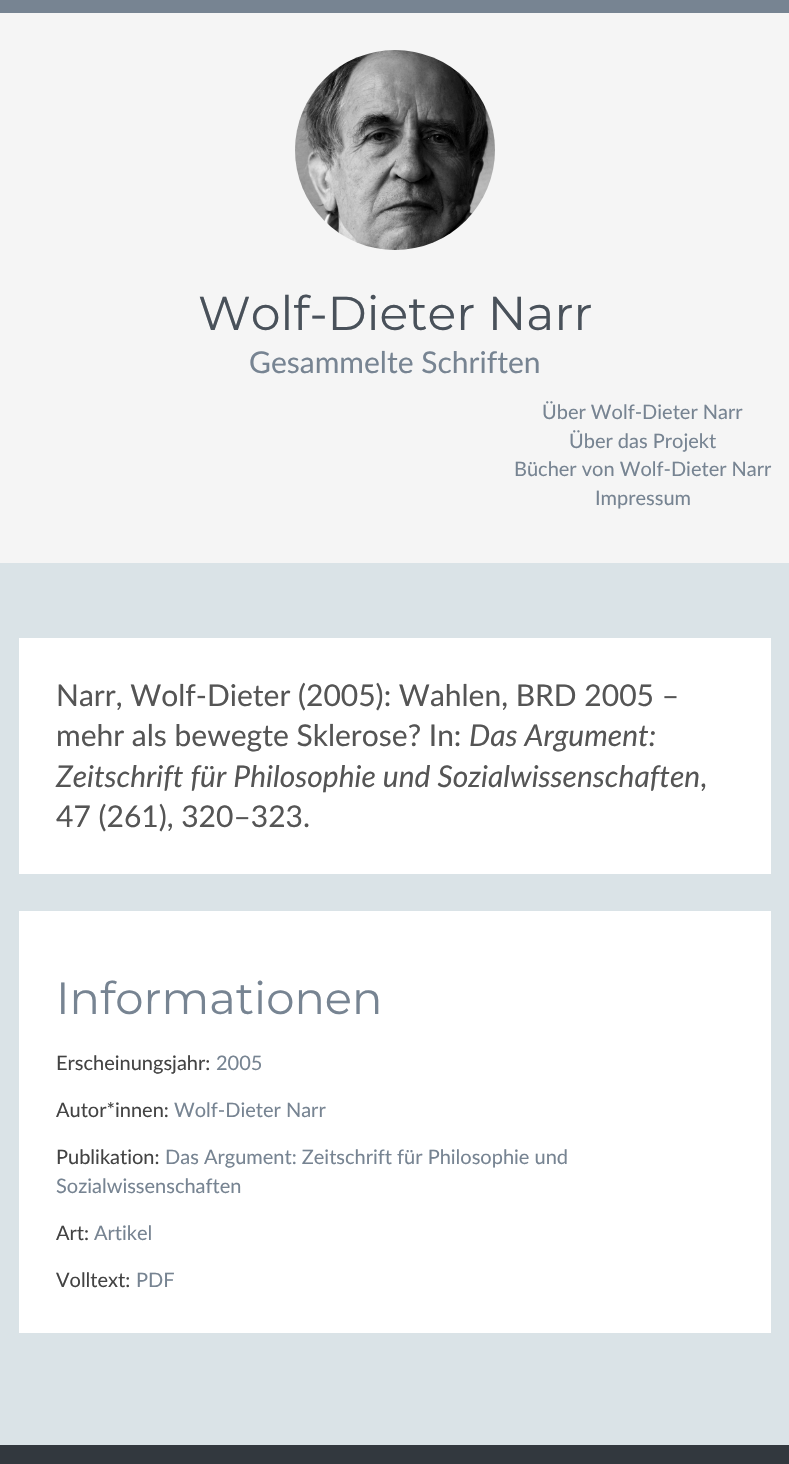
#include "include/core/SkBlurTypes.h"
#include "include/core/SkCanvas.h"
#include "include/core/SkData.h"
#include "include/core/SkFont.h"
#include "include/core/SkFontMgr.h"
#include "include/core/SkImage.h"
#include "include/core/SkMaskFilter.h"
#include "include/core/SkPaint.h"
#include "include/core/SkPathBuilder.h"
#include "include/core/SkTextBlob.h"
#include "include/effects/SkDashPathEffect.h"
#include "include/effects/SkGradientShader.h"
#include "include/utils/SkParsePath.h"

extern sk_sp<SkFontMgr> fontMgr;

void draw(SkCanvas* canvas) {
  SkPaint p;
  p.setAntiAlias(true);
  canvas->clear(SkColorSetRGB(218, 227, 231));
  p.setColor(SkColorSetRGB(245, 245, 245));
  canvas->drawRect(SkRect::MakeLTRB(0, 13, 789, 563), p);
  p.setColor(SkColorSetRGB(119, 132, 146));
  canvas->drawRect(SkRect::MakeLTRB(0, 0, 789, 13), p);
  canvas->drawImageRect(SkImages::DeferredFromEncodedData(SkData::MakeFromFileName("images/1.png")), SkRect::MakeLTRB(295, 50, 495, 250), SkSamplingOptions());
  p.setColor(SK_ColorWHITE);
  canvas->drawRect(SkRect::MakeLTRB(19, 638, 771, 874), p);
  canvas->drawRect(SkRect::MakeLTRB(19, 911, 771, 1333), p);
  p.setColor(SkColorSetRGB(50, 56, 62));
  canvas->drawRect(SkRect::MakeLTRB(0, 1445, 789, 1464), p);
  SkFont font1(fontMgr->matchFamilyStyle("Montserrat", SkFontStyle::Normal()), 47.5f);
  font1.setSubpixel(true);
  p.setColor(SkColorSetRGB(73, 81, 90));
  canvas->drawString("Wolf-Dieter Narr", 198, 330, font1, p);
  SkFont font2(fontMgr->matchFamilyStyle("Lato", SkFontStyle::Normal()), 30);
  font2.setSubpixel(true);
  p.setColor(SkColorSetRGB(119, 132, 146));
  canvas->drawString("Gesammelte Schriften", 249, 373, font2, p);
  SkFont font3(fontMgr->matchFamilyStyle("Lato", SkFontStyle::Normal()), 20);
  font3.setSubpixel(true);
  canvas->drawString("Über Wolf-Dieter Narr", 542, 419, font3, p);
  canvas->drawString("Über das Projekt", 569, 448, font3, p);
  canvas->drawString("Bücher von Wolf-Dieter Narr", 514, 476, font3, p);
  canvas->drawString("Impressum", 595, 505, font3, p);
  p.setColor(SkColorSetRGB(85, 85, 85));
  canvas->drawString("Narr, Wolf-Dieter (2005): Wahlen, BRD 2005 –", 56, 706, font2, p);
  canvas->drawString("mehr als bewegte Sklerose? In:", 56, 746, font2, p);
  SkFont font4(fontMgr->matchFamilyStyle("Lato", SkFontStyle::Italic()), 30);
  font4.setSubpixel(true);
  canvas->drawString("Das Argument:", 469, 746, font4, p);
  canvas->drawString("Zeitschrift für Philosophie und Sozialwissenschaften", 56, 787, font4, p);
  canvas->drawString(",", 700, 787, font2, p);
  canvas->drawString("47 (261), 320–323.", 56, 827, font2, p);
  SkFont font5(fontMgr->matchFamilyStyle("Montserrat", SkFontStyle::Normal()), 45);
  font5.setSubpixel(true);
  p.setColor(SkColorSetRGB(119, 132, 146));
  canvas->drawString("Informationen", 56, 1014, font5, p);
  p.setColor(SkColorSetRGB(67, 67, 67));
  canvas->drawString("Erscheinungsjahr:", 56, 1070, font3, p);
  p.setColor(SkColorSetRGB(119, 132, 146));
  canvas->drawString("2005", 216, 1070, font3, p);
  p.setColor(SkColorSetRGB(67, 67, 67));
  canvas->drawString("Autor*innen:", 56, 1117, font3, p);
  p.setColor(SkColorSetRGB(119, 132, 146));
  canvas->drawString("Wolf-Dieter Narr", 174, 1117, font3, p);
  p.setColor(SkColorSetRGB(67, 67, 67));
  canvas->drawString("Publikation:", 56, 1164, font3, p);
  p.setColor(SkColorSetRGB(119, 132, 146));
  canvas->drawString("Das Argument: Zeitschrift für Philosophie und", 165, 1164, font3, p);
  canvas->drawString("Sozialwissenschaften", 56, 1193, font3, p);
  p.setColor(SkColorSetRGB(67, 67, 67));
  canvas->drawString("Art:", 56, 1240, font3, p);
  p.setColor(SkColorSetRGB(119, 132, 146));
  canvas->drawString("Artikel", 94, 1240, font3, p);
  p.setColor(SkColorSetRGB(67, 67, 67));
  canvas->drawString("Volltext:", 56, 1287, font3, p);
  p.setColor(SkColorSetRGB(119, 132, 146));
  canvas->drawString("PDF", 136, 1287, font3, p);
}
